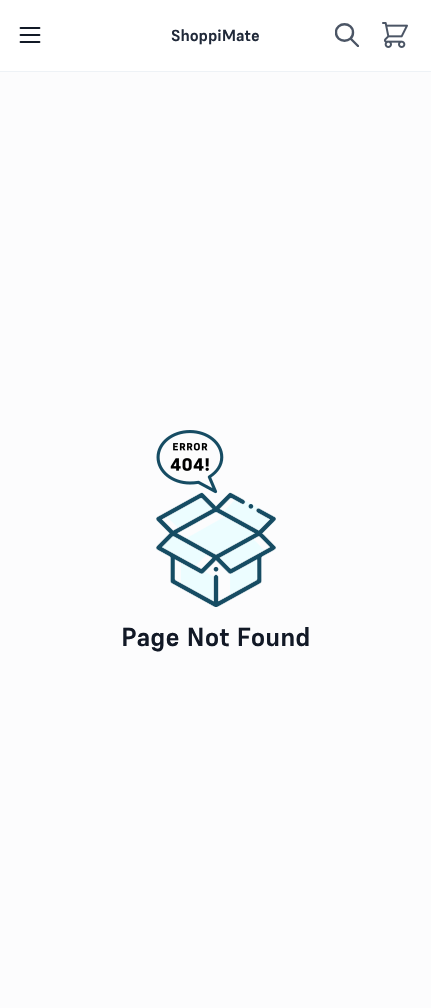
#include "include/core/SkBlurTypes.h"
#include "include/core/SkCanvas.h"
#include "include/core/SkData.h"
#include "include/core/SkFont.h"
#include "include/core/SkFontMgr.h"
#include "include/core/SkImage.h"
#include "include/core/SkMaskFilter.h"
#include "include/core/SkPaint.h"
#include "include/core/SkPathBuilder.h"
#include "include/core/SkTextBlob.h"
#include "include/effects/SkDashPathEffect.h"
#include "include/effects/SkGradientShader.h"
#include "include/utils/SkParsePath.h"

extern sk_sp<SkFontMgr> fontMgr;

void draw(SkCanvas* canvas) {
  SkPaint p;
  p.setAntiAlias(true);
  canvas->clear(SkColorSetRGB(252, 252, 253));
  p.setColor(SK_ColorWHITE);
  canvas->drawRect(SkRect::MakeLTRB(0, 0, 431, 71), p);
  p.setColor(SkColorSetRGB(238, 242, 246));
  canvas->drawRect(SkRect::MakeLTRB(0, 71, 431, 72), p);
  p.setStyle(SkPaint::kStroke_Style);
  p.setStrokeWidth(1.8f);
  p.setStrokeCap(SkPaint::kRound_Cap);
  p.setStrokeJoin(SkPaint::kRound_Join);
  p.setColor(SkColorSetRGB(18, 25, 38));
  canvas->drawPath(SkPathBuilder().moveTo(20.5f, 42).lineTo(39.5f, 42).moveTo(20.5f, 28).lineTo(39.5f, 28).close().moveTo(20.5f, 35).lineTo(39.5f, 35).close().detach(), p);
  canvas->save();
  canvas->clipRect(SkRect::MakeLTRB(335, 23, 359, 47));
  p.setStrokeWidth(2.4f);
  p.setColor(SkColorSetRGB(75, 85, 101));
  canvas->drawPath(SkPathBuilder().moveTo(358, 46).lineTo(350.5f, 38.5f).moveTo(353, 32.5f).cubicTo(353, 43.5f, 336, 43.5f, 336, 32.5f).cubicTo(336, 21.5f, 353, 21.5f, 353, 32.5f).close().detach(), p);
  canvas->restore();
  canvas->drawImageRect(SkImages::DeferredFromEncodedData(SkData::MakeFromFileName("images/1.png")), SkRect::MakeLTRB(382, 22, 408, 48), SkSamplingOptions());
  canvas->drawImageRect(SkImages::DeferredFromEncodedData(SkData::MakeFromFileName("images/2.png")), SkRect::MakeLTRB(156, 430, 276, 607), SkSamplingOptions());
  SkFont font1(fontMgr->matchFamilyStyle("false", SkFontStyle::Bold()), 16);
  font1.setSubpixel(true);
  p.setStyle(SkPaint::kFill_Style);
  p.setColor(SkColorSetRGB(32, 41, 57));
  canvas->drawString("ShoppiMate", 171, 41, font1, p);
  SkFont font2(fontMgr->matchFamilyStyle("false", SkFontStyle::Bold()), 26);
  font2.setSubpixel(true);
  p.setColor(SkColorSetRGB(18, 25, 38));
  canvas->drawString("Page Not Found", 121, 646, font2, p);
}
